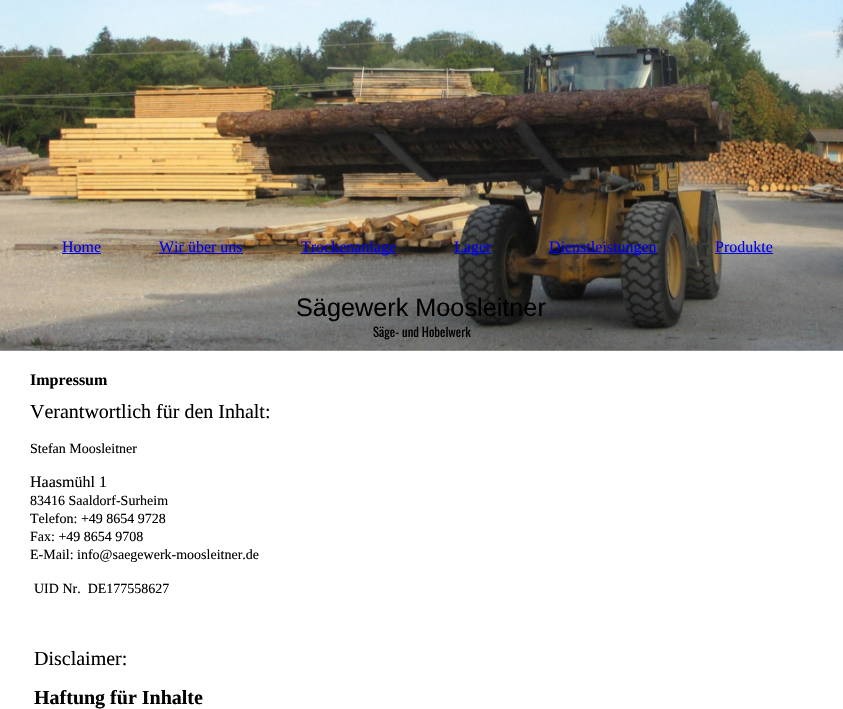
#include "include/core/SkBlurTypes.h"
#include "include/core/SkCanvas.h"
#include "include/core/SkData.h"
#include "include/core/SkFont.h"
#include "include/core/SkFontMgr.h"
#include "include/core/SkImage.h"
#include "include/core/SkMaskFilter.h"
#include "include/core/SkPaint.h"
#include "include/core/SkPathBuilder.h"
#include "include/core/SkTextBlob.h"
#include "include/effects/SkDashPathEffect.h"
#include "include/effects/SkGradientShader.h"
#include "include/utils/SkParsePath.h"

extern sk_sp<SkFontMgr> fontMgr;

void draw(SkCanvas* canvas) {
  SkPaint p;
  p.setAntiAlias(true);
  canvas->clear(SK_ColorWHITE);
  canvas->drawImageRect(SkImages::DeferredFromEncodedData(SkData::MakeFromFileName("images/1.png")), SkRect::MakeLTRB(0, 0, 843, 351), SkSamplingOptions());
  p.setColor(SkColorSetRGB(0, 0, 238));
  canvas->drawRect(SkRect::MakeLTRB(62, 253, 101, 254), p);
  canvas->drawRect(SkRect::MakeLTRB(159, 253, 243, 254), p);
  canvas->drawRect(SkRect::MakeLTRB(301, 253, 396, 254), p);
  canvas->drawRect(SkRect::MakeLTRB(454, 253, 491, 254), p);
  canvas->drawRect(SkRect::MakeLTRB(549, 253, 657, 254), p);
  canvas->drawRect(SkRect::MakeLTRB(715, 253, 773, 254), p);
  SkFont font1(fontMgr->matchFamilyStyle("Liberation Serif", SkFontStyle::Normal()), 16);
  font1.setSubpixel(true);
  canvas->drawString("Home", 62, 252, font1, p);
  canvas->drawString("Wir über uns", 159, 252, font1, p);
  canvas->drawString("Trockenanlage", 301, 252, font1, p);
  canvas->drawString("Lager", 454, 252, font1, p);
  canvas->drawString("Dienstleistungen", 549, 252, font1, p);
  canvas->drawString("Produkte", 715, 252, font1, p);
  SkFont font2(fontMgr->matchFamilyStyle("Liberation Sans", SkFontStyle::Normal()), 25.25f);
  font2.setSubpixel(true);
  p.setColor(SK_ColorBLACK);
  canvas->drawString("Sägewerk Moosleitner", 296, 316, font2, p);
  SkFont font3(fontMgr->matchFamilyStyle("Oswald", SkFontStyle::Normal()), 12.75f);
  font3.setSubpixel(true);
  canvas->drawString("Säge- und Hobelwerk", 373, 337, font3, p);
  SkFont font4(fontMgr->matchFamilyStyle("Liberation Serif", SkFontStyle::Bold()), 16);
  font4.setSubpixel(true);
  canvas->drawString("Impressum", 30, 385, font4, p);
  SkFont font5(fontMgr->matchFamilyStyle("Liberation Serif", SkFontStyle::Normal()), 20);
  font5.setSubpixel(true);
  canvas->drawString("Verantwortlich für den Inhalt:", 30, 418, font5, p);
  SkFont font6(fontMgr->matchFamilyStyle("Liberation Serif", SkFontStyle::Normal()), 14);
  font6.setSubpixel(true);
  canvas->drawString("Stefan Moosleitner", 30, 453, font6, p);
  canvas->drawString("Haasmühl 1", 30, 487, font1, p);
  canvas->drawString("83416 Saaldorf-Surheim", 30, 505, font6, p);
  canvas->drawString("Telefon: +49 8654 9728", 30, 523, font6, p);
  canvas->drawString("Fax: +49 8654 9708", 30, 541, font6, p);
  canvas->drawString("E-Mail: info@saegewerk-moosleitner.de", 30, 559, font6, p);
  canvas->drawString("UID Nr.  DE177558627", 34, 593, font6, p);
  canvas->drawString("Disclaimer:", 34, 665, font5, p);
  SkFont font7(fontMgr->matchFamilyStyle("Liberation Serif", SkFontStyle::Bold()), 20);
  font7.setSubpixel(true);
  canvas->drawString("Haftung für Inhalte", 34, 704, font7, p);
}
